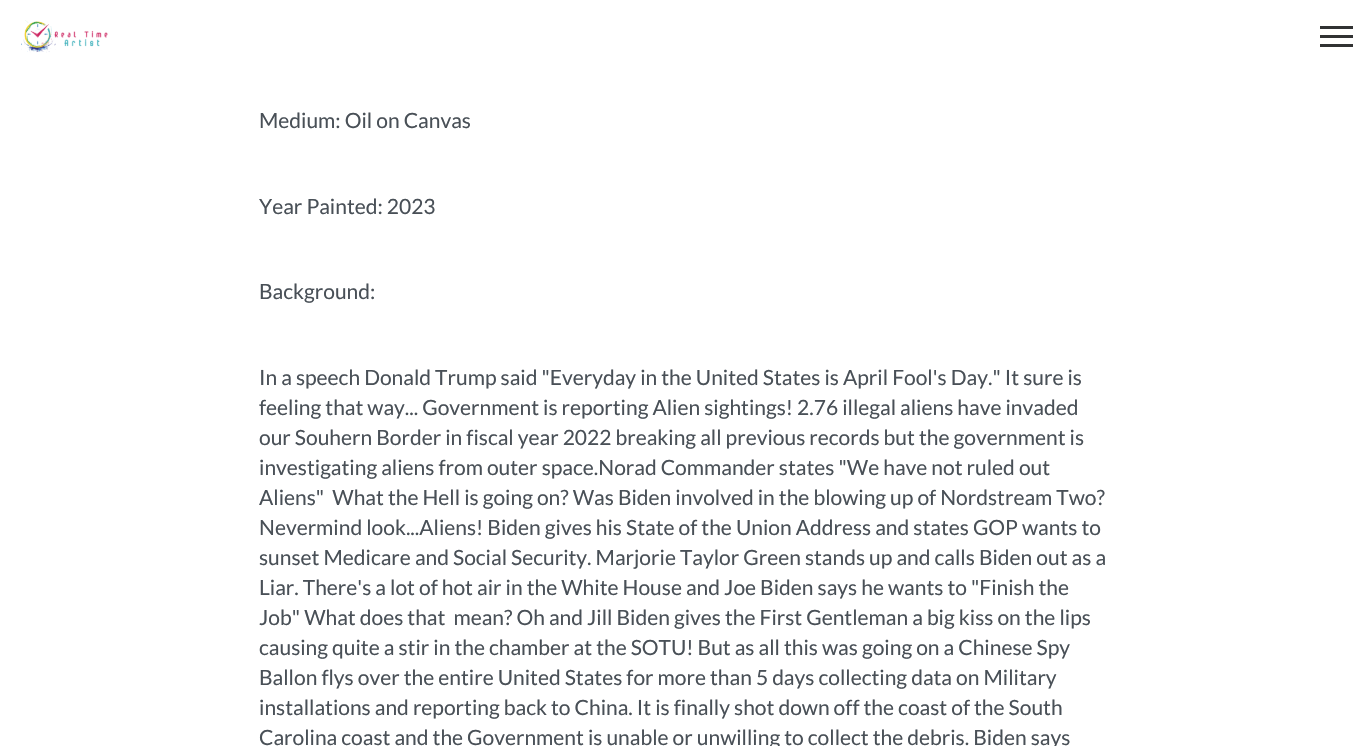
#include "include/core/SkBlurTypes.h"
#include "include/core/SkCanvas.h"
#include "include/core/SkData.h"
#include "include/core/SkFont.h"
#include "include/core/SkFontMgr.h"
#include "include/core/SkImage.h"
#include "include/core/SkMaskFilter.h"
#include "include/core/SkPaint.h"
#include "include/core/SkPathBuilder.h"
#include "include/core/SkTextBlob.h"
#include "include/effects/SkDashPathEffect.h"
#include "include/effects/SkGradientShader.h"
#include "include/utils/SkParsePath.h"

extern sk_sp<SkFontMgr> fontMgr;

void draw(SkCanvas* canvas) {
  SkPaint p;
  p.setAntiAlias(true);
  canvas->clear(SK_ColorWHITE);
  canvas->drawImageRect(SkImages::DeferredFromEncodedData(SkData::MakeFromFileName("images/1.png")), SkRect::MakeLTRB(21, 20, 108, 53), SkSamplingOptions());
  p.setColor(SkColorSetRGB(49, 50, 51));
  canvas->drawRect(SkRect::MakeLTRB(1320, 26, 1353, 29), p);
  canvas->drawRect(SkRect::MakeLTRB(1320, 44, 1353, 47), p);
  canvas->drawRect(SkRect::MakeLTRB(1320, 35, 1353, 38), p);
  SkFont font1(fontMgr->matchFamilyStyle("Lato", SkFontStyle::Normal()), 21);
  font1.setSubpixel(true);
  p.setColor(SkColorSetRGB(73, 80, 87));
  canvas->drawString("Medium: Oil on Canvas", 259, 128, font1, p);
  canvas->drawString("Year Painted: 2023", 259, 214, font1, p);
  canvas->drawString("Background:", 259, 299, font1, p);
  canvas->drawString("In a speech Donald Trump said \"Everyday in the United States is April Fool's Day.\" It sure is", 259, 385, font1, p);
  canvas->drawString("feeling that way... Government is reporting Alien sightings! 2.76 illegal aliens have invaded", 259, 415, font1, p);
  canvas->drawString("our Souhern Border in fiscal year 2022 breaking all previous records but the government is", 259, 445, font1, p);
  canvas->drawString("investigating aliens from outer space.Norad Commander states \"We have not ruled out", 259, 475, font1, p);
  canvas->drawString("Aliens\"  What the Hell is going on? Was Biden involved in the blowing up of Nordstream Two?", 259, 505, font1, p);
  canvas->drawString("Nevermind look...Aliens! Biden gives his State of the Union Address and states GOP wants to", 259, 535, font1, p);
  canvas->drawString("sunset Medicare and Social Security. Marjorie Taylor Green stands up and calls Biden out as a", 259, 565, font1, p);
  canvas->drawString("Liar. There's a lot of hot air in the White House and Joe Biden says he wants to \"Finish the", 259, 595, font1, p);
  canvas->drawString("Job\" What does that  mean? Oh and Jill Biden gives the First Gentleman a big kiss on the lips", 259, 625, font1, p);
  canvas->drawString("causing quite a stir in the chamber at the SOTU! But as all this was going on a Chinese Spy", 259, 655, font1, p);
  canvas->drawString("Ballon flys over the entire United States for more than 5 days collecting data on Military", 259, 685, font1, p);
  canvas->drawString("installations and reporting back to China. It is finally shot down off the coast of the South", 259, 715, font1, p);
  canvas->drawString("Carolina coast and the Government is unable or unwilling to collect the debris. Biden says", 259, 745, font1, p);
}
